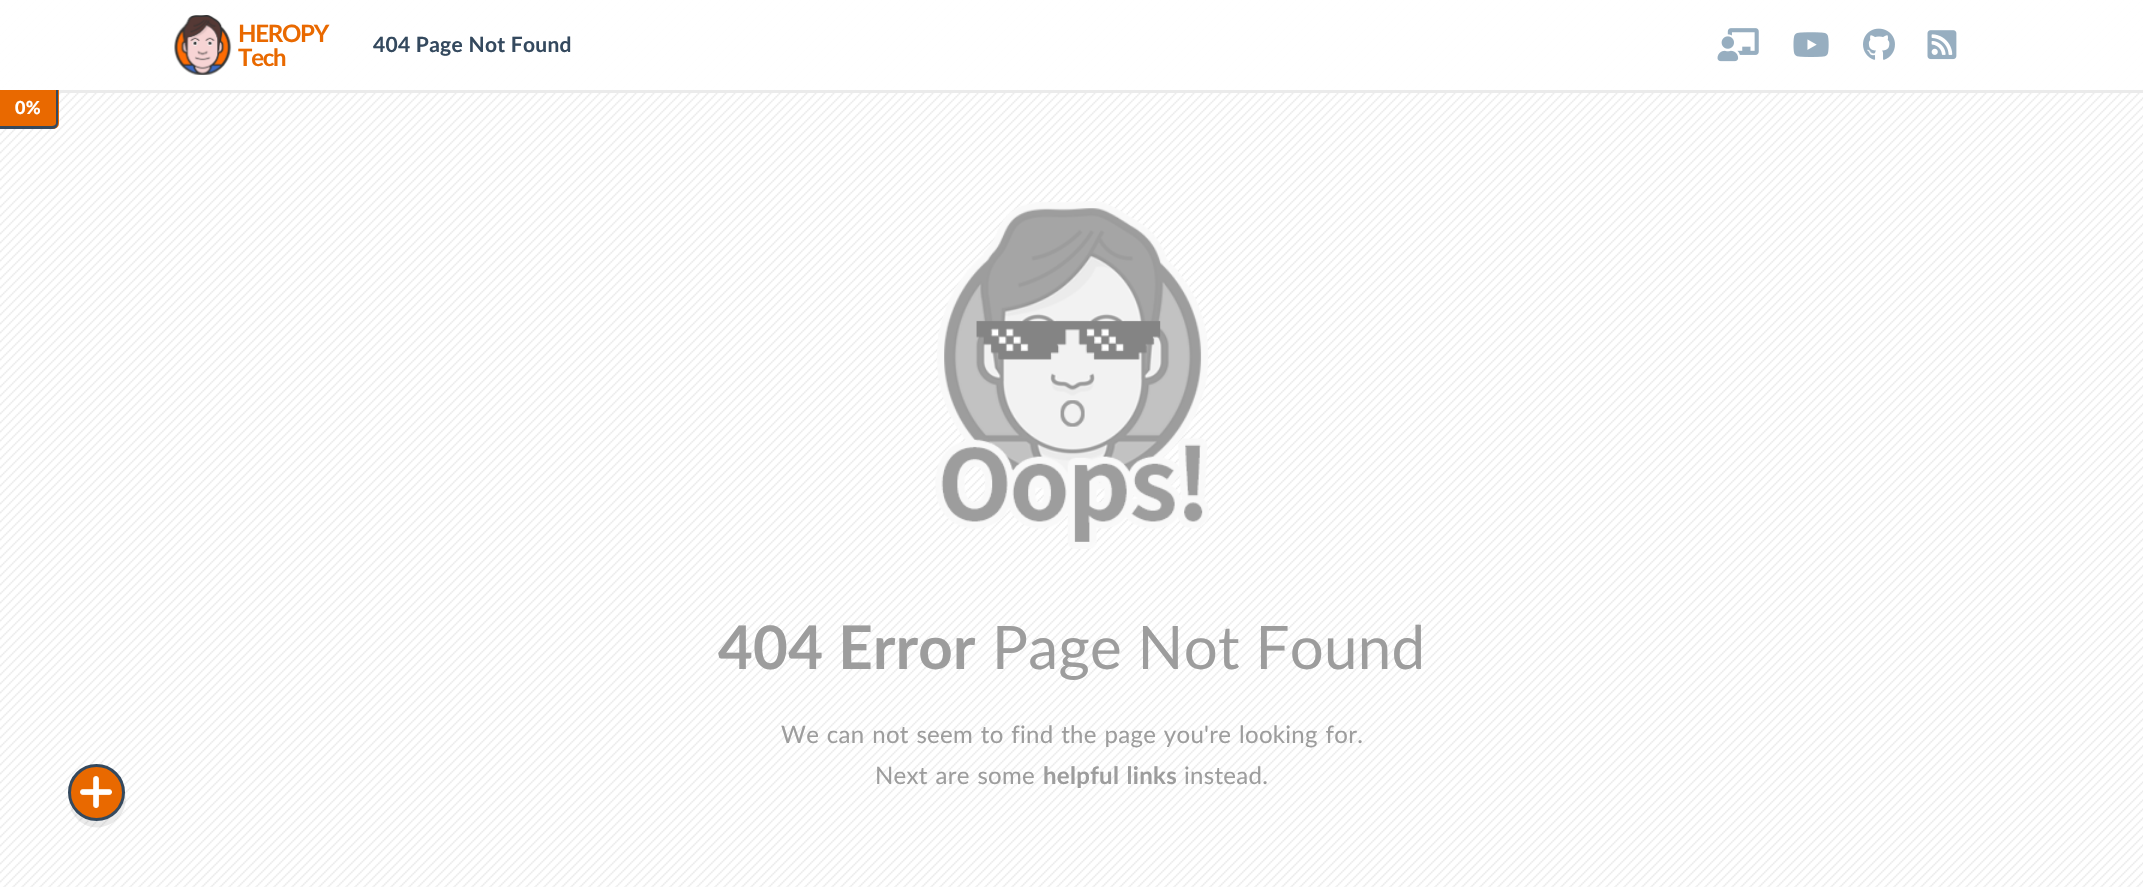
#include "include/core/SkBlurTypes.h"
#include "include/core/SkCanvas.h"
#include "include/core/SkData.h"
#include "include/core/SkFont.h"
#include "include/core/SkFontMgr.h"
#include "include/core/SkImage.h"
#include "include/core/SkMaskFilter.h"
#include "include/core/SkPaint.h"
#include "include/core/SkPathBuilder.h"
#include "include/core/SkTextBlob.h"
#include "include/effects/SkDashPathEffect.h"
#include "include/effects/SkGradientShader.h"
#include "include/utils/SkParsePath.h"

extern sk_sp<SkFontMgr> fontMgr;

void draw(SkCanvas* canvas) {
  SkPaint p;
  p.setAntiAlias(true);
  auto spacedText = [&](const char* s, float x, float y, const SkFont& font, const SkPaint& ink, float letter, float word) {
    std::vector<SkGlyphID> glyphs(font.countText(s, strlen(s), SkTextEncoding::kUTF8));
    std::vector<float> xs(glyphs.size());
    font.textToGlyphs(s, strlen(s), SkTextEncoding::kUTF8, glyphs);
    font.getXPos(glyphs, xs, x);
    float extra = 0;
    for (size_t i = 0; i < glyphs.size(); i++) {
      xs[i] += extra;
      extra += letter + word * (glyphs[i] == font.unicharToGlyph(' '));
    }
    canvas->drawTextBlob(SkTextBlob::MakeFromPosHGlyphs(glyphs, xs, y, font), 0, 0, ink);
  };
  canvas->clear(SK_ColorWHITE);
  canvas->drawImageRect(SkImages::DeferredFromEncodedData(SkData::MakeFromFileName("images/1.png")), SkRect::MakeLTRB(0, 0, 2143, 887), SkSamplingOptions());
  p.setColor(SkColorSetARGB(242, 255, 255, 255));
  canvas->drawRect(SkRect::MakeLTRB(0, 0, 2143, 90), p);
  p.setColor(SkColorSetRGB(235, 235, 235));
  canvas->drawRect(SkRect::MakeLTRB(59, 90, 2143, 93), p);
  canvas->drawImageRect(SkImages::DeferredFromEncodedData(SkData::MakeFromFileName("images/2.png")), SkRect::MakeLTRB(174, 15, 232, 75), SkSamplingOptions());
  canvas->drawImageRect(SkImages::DeferredFromEncodedData(SkData::MakeFromFileName("images/3.png")), SkRect::MakeLTRB(1717, 28, 1759, 62), SkSamplingOptions());
  canvas->drawImageRect(SkImages::DeferredFromEncodedData(SkData::MakeFromFileName("images/4.png")), SkRect::MakeLTRB(1793, 32, 1829, 57), SkSamplingOptions());
  canvas->drawImageRect(SkImages::DeferredFromEncodedData(SkData::MakeFromFileName("images/5.png")), SkRect::MakeLTRB(1863, 28, 1895, 60), SkSamplingOptions());
  canvas->drawImageRect(SkImages::DeferredFromEncodedData(SkData::MakeFromFileName("images/6.png")), SkRect::MakeLTRB(1927, 30, 1957, 60), SkSamplingOptions());
  p.setColor(SkColorSetRGB(233, 105, 0));
  canvas->drawPath(SkPathBuilder().moveTo(0, 90).lineTo(59, 90).lineTo(59, 123).cubicTo(59, 126.5f, 56.5f, 129, 53, 129).lineTo(0, 129).close().detach(), p);
  p.setColor(SkColorSetRGB(52, 73, 94));
  canvas->drawPath(SkPathBuilder(SkPathFillType::kEvenOdd).moveTo(0, 90).lineTo(58, 90).lineTo(58, 123).cubicTo(58, 126, 56, 129, 52, 129).lineTo(0, 129).close().moveTo(0, 90).lineTo(56, 90).lineTo(56, 123).cubicTo(56, 125, 54, 126, 52, 126).lineTo(0, 126).close().detach(), p);
  canvas->drawImageRect(SkImages::DeferredFromEncodedData(SkData::MakeFromFileName("images/7.png")), SkRect::MakeLTRB(935, 201, 1209, 549), SkSamplingOptions());
  p.setColor(SkColorSetARGB(20, 0, 0, 0));
  canvas->drawPath(SkPathBuilder().moveTo(69, 802).cubicTo(70, 809, 73, 815, 78, 820).cubicTo(101, 840, 134, 816, 124, 789).cubicTo(128, 822, 80, 833, 69, 802).close().detach(), p);
  p.setColor(SkColorSetRGB(233, 105, 0));
  canvas->drawCircle(96.5f, 792.5f, 27, p);
  p.setStyle(SkPaint::kStroke_Style);
  p.setStrokeWidth(3);
  p.setColor(SkColorSetRGB(52, 73, 94));
  canvas->drawCircle(96.5f, 792.5f, 27, p);
  canvas->drawImageRect(SkImages::DeferredFromEncodedData(SkData::MakeFromFileName("images/8.png")), SkRect::MakeLTRB(80, 776, 112, 808), SkSamplingOptions());
  SkFont font1(fontMgr->matchFamilyStyle("Lato", SkFontStyle::Bold()), 24);
  font1.setSubpixel(true);
  p.setStyle(SkPaint::kFill_Style);
  p.setColor(SkColorSetRGB(233, 105, 0));
  spacedText("HEROPY", 238, 42, font1, p, -1.25f, 0);
  spacedText("Tech", 238, 66, font1, p, -1.25f, 0);
  SkFont font2(fontMgr->matchFamilyStyle("Lato", SkFontStyle::Bold()), 21);
  font2.setSubpixel(true);
  p.setColor(SkColorSetRGB(52, 73, 94));
  spacedText("404 Page Not Found", 373, 52, font2, p, 0.3f, 0);
  SkFont font3(fontMgr->matchFamilyStyle("Lato", SkFontStyle(900, SkFontStyle::kNormal_Width, SkFontStyle::kUpright_Slant)), 18);
  font3.setSubpixel(true);
  p.setColor(SK_ColorWHITE);
  spacedText("0%", 15, 114, font3, p, 0.3f, 0);
  SkFont font4(fontMgr->matchFamilyStyle("Lato", SkFontStyle::Bold()), 60);
  font4.setSubpixel(true);
  p.setColor(SkColorSetRGB(157, 157, 157));
  spacedText("404 Error", 718, 669, font4, p, 0.3f, 0);
  SkFont font5(fontMgr->matchFamilyStyle("Lato", SkFontStyle::Normal()), 60);
  font5.setSubpixel(true);
  spacedText("Page Not Found", 992, 669, font5, p, 0.3f, 0);
  SkFont font6(fontMgr->matchFamilyStyle("Lato", SkFontStyle::Normal()), 24);
  font6.setSubpixel(true);
  spacedText("We can not seem to find the page you're looking for.", 781, 743, font6, p, 0.3f, 1.25f);
  spacedText("Next are some", 875, 784, font6, p, 0.3f, 1.25f);
  spacedText("helpful links", 1043, 784, font1, p, 0.3f, 1.25f);
  spacedText("instead.", 1184, 784, font6, p, 0.3f, 0);
}
